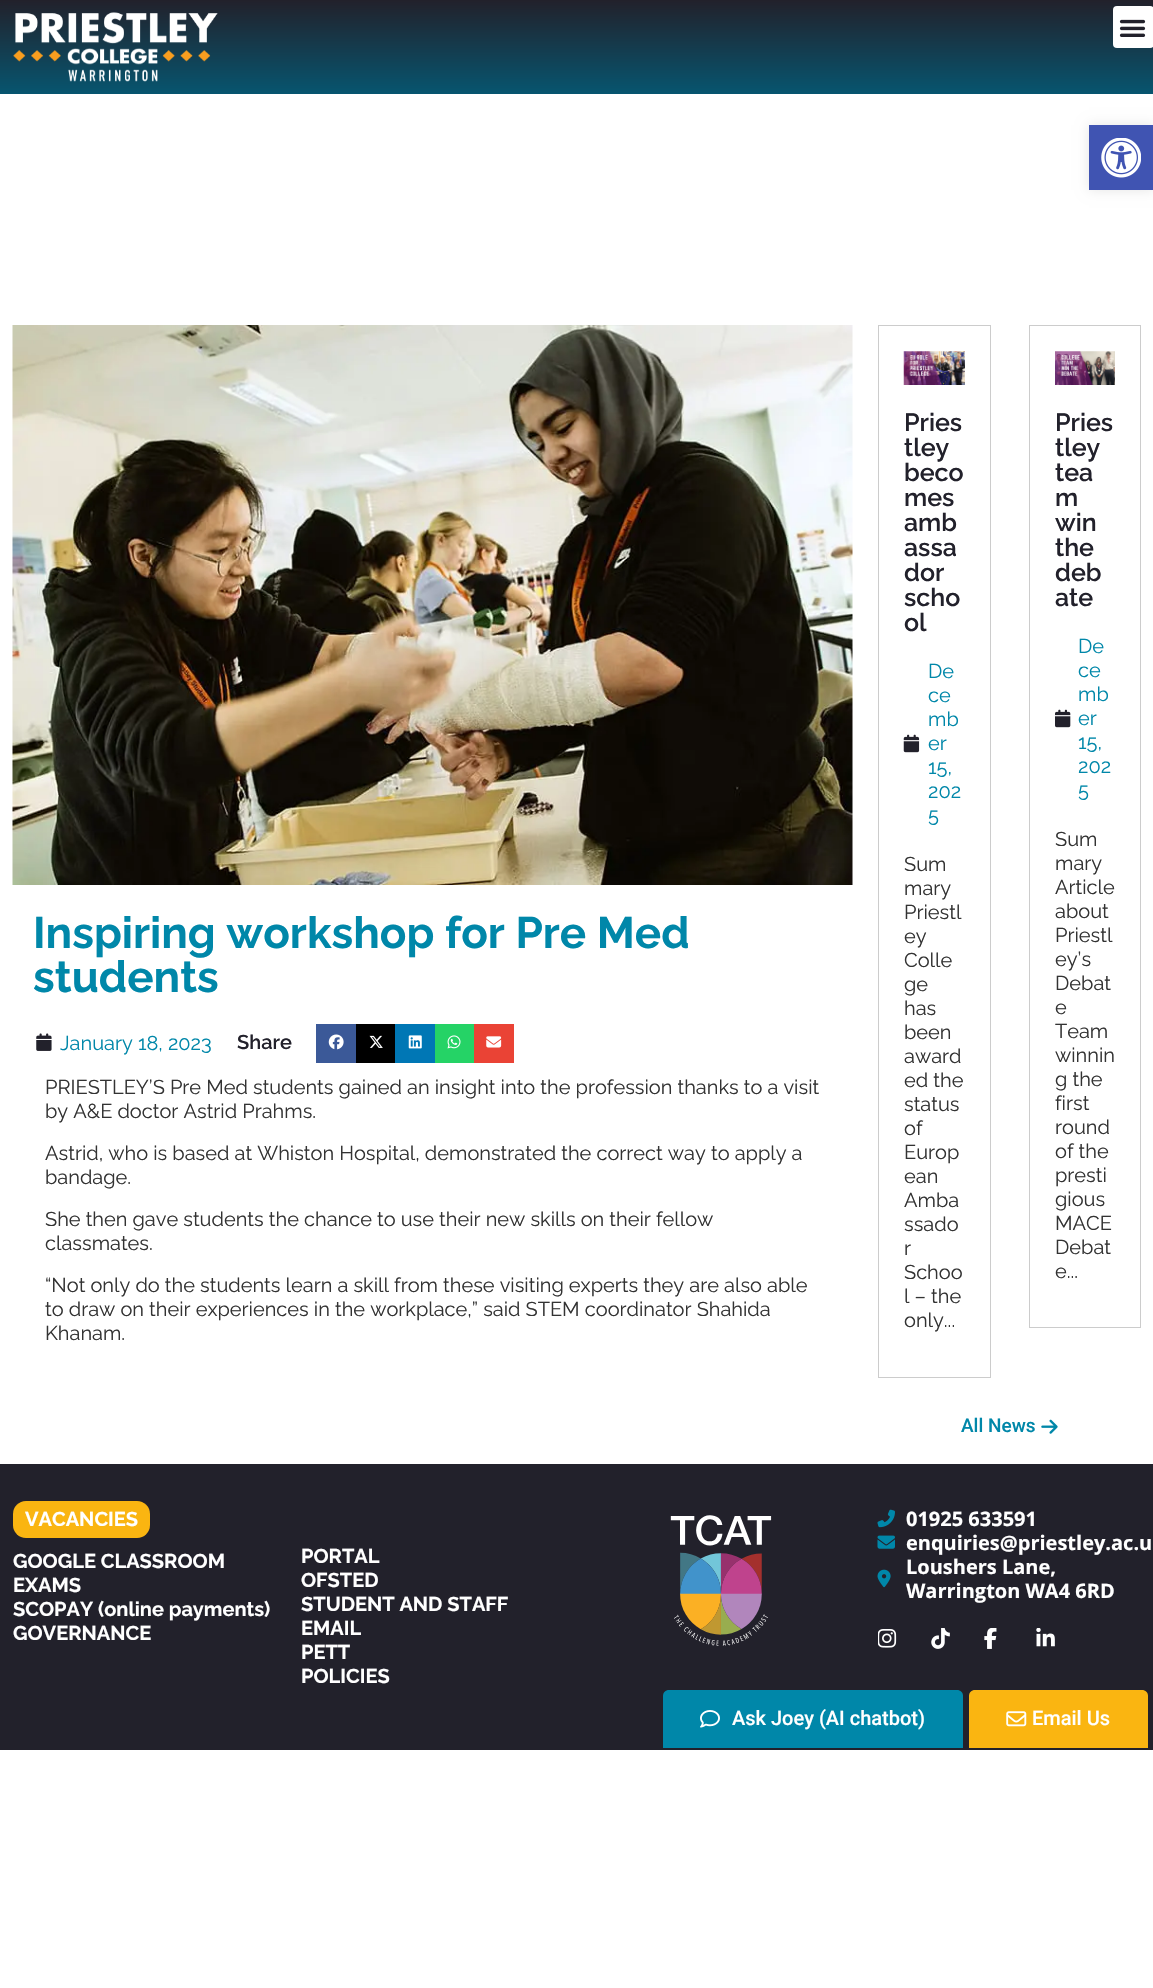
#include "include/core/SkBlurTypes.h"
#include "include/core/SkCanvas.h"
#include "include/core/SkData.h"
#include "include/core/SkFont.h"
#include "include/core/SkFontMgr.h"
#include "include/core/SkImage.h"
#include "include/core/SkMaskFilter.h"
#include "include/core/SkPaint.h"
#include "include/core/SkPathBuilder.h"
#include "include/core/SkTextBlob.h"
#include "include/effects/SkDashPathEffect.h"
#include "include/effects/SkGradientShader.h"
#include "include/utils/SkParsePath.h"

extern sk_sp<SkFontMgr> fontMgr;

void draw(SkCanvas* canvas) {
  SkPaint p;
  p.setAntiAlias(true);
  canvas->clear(SK_ColorWHITE);
  {
    const SkColor colors[] = {SkColorSetRGB(34, 33, 43), SkColorSetRGB(7, 85, 111)};
    const float stops[] = {0, 1};
    const SkPoint ends[] = {{577, 0}, {577, 94}};
    p.setShader(SkGradientShader::MakeLinear(ends, colors, stops, 2, SkTileMode::kClamp));
    p.setAlpha(255);
  }
  canvas->drawRect(SkRect::MakeLTRB(0, 0, 1153, 94), p);
  canvas->drawImageRect(SkImages::DeferredFromEncodedData(SkData::MakeFromFileName("images/1.png")), SkRect::MakeLTRB(13, 12, 218, 82), SkSamplingOptions());
  p.setShader(nullptr);
  p.setColor(SK_ColorWHITE);
  canvas->drawRoundRect(SkRect::MakeLTRB(1113, 6, 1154, 48), 4, 4, p);
  canvas->drawImageRect(SkImages::DeferredFromEncodedData(SkData::MakeFromFileName("images/2.png")), SkRect::MakeLTRB(1119, 19, 1146, 37), SkSamplingOptions());
  p.setColor(SkColorSetARGB(26, 0, 0, 0));
  p.setMaskFilter(SkMaskFilter::MakeBlur(kNormal_SkBlurStyle, 6));
  canvas->drawRect(SkRect::MakeLTRB(1089, 125, 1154, 190), p);
  p.setMaskFilter(nullptr);
  p.setColor(SkColorSetRGB(64, 84, 178));
  canvas->drawRect(SkRect::MakeLTRB(1089, 125, 1153, 190), p);
  canvas->drawImageRect(SkImages::DeferredFromEncodedData(SkData::MakeFromFileName("images/3.png")), SkRect::MakeLTRB(1101, 138, 1141, 178), SkSamplingOptions());
  canvas->drawImageRect(SkImages::DeferredFromEncodedData(SkData::MakeFromFileName("images/4.png")), SkRect::MakeLTRB(12, 325, 853, 885), SkSamplingOptions());
  canvas->drawImageRect(SkImages::DeferredFromEncodedData(SkData::MakeFromFileName("images/5.png")), SkRect::MakeLTRB(36, 1033, 52, 1051), SkSamplingOptions());
  p.setColor(SkColorSetRGB(59, 89, 152));
  canvas->drawRect(SkRect::MakeLTRB(316, 1024, 356, 1063), p);
  canvas->drawImageRect(SkImages::DeferredFromEncodedData(SkData::MakeFromFileName("images/6.png")), SkRect::MakeLTRB(328, 1034, 344, 1050), SkSamplingOptions());
  p.setColor(SK_ColorBLACK);
  canvas->drawRect(SkRect::MakeLTRB(356, 1024, 395, 1063), p);
  canvas->drawImageRect(SkImages::DeferredFromEncodedData(SkData::MakeFromFileName("images/7.png")), SkRect::MakeLTRB(369, 1035, 383, 1048), SkSamplingOptions());
  p.setColor(SkColorSetRGB(0, 119, 181));
  canvas->drawRect(SkRect::MakeLTRB(395, 1024, 435, 1063), p);
  canvas->drawImageRect(SkImages::DeferredFromEncodedData(SkData::MakeFromFileName("images/8.png")), SkRect::MakeLTRB(408, 1035, 422, 1049), SkSamplingOptions());
  p.setColor(SkColorSetRGB(37, 211, 102));
  canvas->drawRect(SkRect::MakeLTRB(435, 1024, 474, 1063), p);
  canvas->drawImageRect(SkImages::DeferredFromEncodedData(SkData::MakeFromFileName("images/9.png")), SkRect::MakeLTRB(447, 1035, 461, 1049), SkSamplingOptions());
  p.setColor(SkColorSetRGB(234, 67, 53));
  canvas->drawRect(SkRect::MakeLTRB(474, 1024, 514, 1063), p);
  canvas->drawImageRect(SkImages::DeferredFromEncodedData(SkData::MakeFromFileName("images/10.png")), SkRect::MakeLTRB(486, 1036, 502, 1048), SkSamplingOptions());
  p.setStyle(SkPaint::kStroke_Style);
  p.setStrokeWidth(1);
  p.setColor(SkColorSetRGB(204, 204, 204));
  canvas->drawRect(SkRect::MakeLTRB(878.5f, 325.5f, 990.5f, 1377.5f), p);
  canvas->drawImageRect(SkImages::DeferredFromEncodedData(SkData::MakeFromFileName("images/11.png")), SkRect::MakeLTRB(903, 351, 965, 385), SkSamplingOptions());
  canvas->drawImageRect(SkImages::DeferredFromEncodedData(SkData::MakeFromFileName("images/12.png")), SkRect::MakeLTRB(903, 734, 920, 753), SkSamplingOptions());
  canvas->drawRect(SkRect::MakeLTRB(1029.5f, 325.5f, 1140.5f, 1327.5f), p);
  canvas->drawImageRect(SkImages::DeferredFromEncodedData(SkData::MakeFromFileName("images/13.png")), SkRect::MakeLTRB(1055, 351, 1115, 385), SkSamplingOptions());
  canvas->drawImageRect(SkImages::DeferredFromEncodedData(SkData::MakeFromFileName("images/14.png")), SkRect::MakeLTRB(1055, 709, 1071, 728), SkSamplingOptions());
  canvas->drawImageRect(SkImages::DeferredFromEncodedData(SkData::MakeFromFileName("images/15.png")), SkRect::MakeLTRB(1041, 1419, 1058, 1434), SkSamplingOptions());
  p.setStyle(SkPaint::kFill_Style);
  p.setColor(SkColorSetRGB(34, 33, 43));
  canvas->drawRect(SkRect::MakeLTRB(0, 1464, 1153, 1750), p);
  p.setColor(SkColorSetRGB(250, 181, 17));
  canvas->drawRoundRect(SkRect::MakeLTRB(13, 1501, 150, 1538), 13, 13, p);
  canvas->drawImageRect(SkImages::DeferredFromEncodedData(SkData::MakeFromFileName("images/16.png")), SkRect::MakeLTRB(670, 1515, 772, 1646), SkSamplingOptions());
  canvas->drawImageRect(SkImages::DeferredFromEncodedData(SkData::MakeFromFileName("images/17.png")), SkRect::MakeLTRB(877, 1509, 895, 1528), SkSamplingOptions());
  canvas->drawImageRect(SkImages::DeferredFromEncodedData(SkData::MakeFromFileName("images/18.png")), SkRect::MakeLTRB(877, 1535, 895, 1549), SkSamplingOptions());
  canvas->drawImageRect(SkImages::DeferredFromEncodedData(SkData::MakeFromFileName("images/19.png")), SkRect::MakeLTRB(877, 1569, 891, 1588), SkSamplingOptions());
  canvas->drawImageRect(SkImages::DeferredFromEncodedData(SkData::MakeFromFileName("images/20.png")), SkRect::MakeLTRB(878, 1629, 897, 1648), SkSamplingOptions());
  canvas->drawImageRect(SkImages::DeferredFromEncodedData(SkData::MakeFromFileName("images/21.png")), SkRect::MakeLTRB(931, 1628, 950, 1649), SkSamplingOptions());
  canvas->drawImageRect(SkImages::DeferredFromEncodedData(SkData::MakeFromFileName("images/22.png")), SkRect::MakeLTRB(984, 1628, 997, 1649), SkSamplingOptions());
  canvas->drawImageRect(SkImages::DeferredFromEncodedData(SkData::MakeFromFileName("images/23.png")), SkRect::MakeLTRB(1036, 1628, 1055, 1647), SkSamplingOptions());
  p.setColor(SkColorSetRGB(0, 135, 169));
  canvas->drawPath(SkPathBuilder().moveTo(669, 1690).lineTo(957, 1690).cubicTo(960.5f, 1690, 963, 1692.5f, 963, 1696).lineTo(963, 1748).lineTo(663, 1748).lineTo(663, 1696).cubicTo(663, 1692.5f, 665.5f, 1690, 669, 1690).close().detach(), p);
  canvas->drawImageRect(SkImages::DeferredFromEncodedData(SkData::MakeFromFileName("images/24.png")), SkRect::MakeLTRB(700, 1710, 720, 1728), SkSamplingOptions());
  p.setColor(SkColorSetRGB(250, 181, 17));
  canvas->drawPath(SkPathBuilder().moveTo(975, 1690).lineTo(1142, 1690).cubicTo(1145.5f, 1690, 1148, 1692.5f, 1148, 1696).lineTo(1148, 1748).lineTo(969, 1748).lineTo(969, 1696).cubicTo(969, 1692.5f, 971.5f, 1690, 975, 1690).close().detach(), p);
  canvas->drawImageRect(SkImages::DeferredFromEncodedData(SkData::MakeFromFileName("images/25.png")), SkRect::MakeLTRB(1006, 1711, 1027, 1727), SkSamplingOptions());
  SkFont font1(fontMgr->matchFamilyStyle("Raleway", SkFontStyle::Bold()), 44);
  font1.setSubpixel(true);
  p.setColor(SkColorSetRGB(0, 135, 169));
  canvas->drawString("Inspiring workshop for Pre Med", 33, 948, font1, p);
  canvas->drawString("students", 33, 992, font1, p);
  SkFont font2(fontMgr->matchFamilyStyle("Raleway", SkFontStyle::Normal()), 20);
  font2.setSubpixel(true);
  canvas->drawString("January 18, 2023", 60, 1050, font2, p);
  SkFont font3(fontMgr->matchFamilyStyle("Raleway", SkFontStyle(600, SkFontStyle::kNormal_Width, SkFontStyle::kUpright_Slant)), 20);
  font3.setSubpixel(true);
  p.setColor(SkColorSetRGB(34, 33, 43));
  canvas->drawString("Share", 237, 1049, font3, p);
  p.setColor(SkColorSetRGB(51, 51, 51));
  canvas->drawString("PRIESTLEY’S Pre Med students gained an insight into the profession thanks to a visit", 45, 1094, font2, p);
  canvas->drawString("by A&E doctor Astrid Prahms.", 45, 1118, font2, p);
  canvas->drawString("Astrid, who is based at Whiston Hospital, demonstrated the correct way to apply a", 45, 1160, font2, p);
  canvas->drawString("bandage.", 45, 1184, font2, p);
  canvas->drawString("She then gave students the chance to use their new skills on their fellow", 45, 1226, font2, p);
  canvas->drawString("classmates.", 45, 1250, font2, p);
  canvas->drawString("“Not only do the students learn a skill from these visiting experts they are also able", 45, 1292, font2, p);
  canvas->drawString("to draw on their experiences in the workplace,” said STEM coordinator Shahida", 45, 1316, font2, p);
  canvas->drawString("Khanam.", 45, 1340, font2, p);
  SkFont font4(fontMgr->matchFamilyStyle("Raleway", SkFontStyle(600, SkFontStyle::kNormal_Width, SkFontStyle::kUpright_Slant)), 25);
  font4.setSubpixel(true);
  p.setColor(SkColorSetRGB(34, 33, 43));
  canvas->drawString("Pries", 904, 431, font4, p);
  canvas->drawString("tley", 904, 456, font4, p);
  canvas->drawString("beco", 904, 481, font4, p);
  canvas->drawString("mes", 904, 506, font4, p);
  canvas->drawString("amb", 904, 531, font4, p);
  canvas->drawString("assa", 904, 556, font4, p);
  canvas->drawString("dor", 904, 581, font4, p);
  canvas->drawString("scho", 904, 606, font4, p);
  canvas->drawString("ol", 904, 631, font4, p);
  p.setColor(SkColorSetRGB(0, 135, 169));
  canvas->drawString("De", 928, 678, font2, p);
  canvas->drawString("ce", 928, 702, font2, p);
  canvas->drawString("mb", 928, 726, font2, p);
  canvas->drawString("er", 928, 750, font2, p);
  canvas->drawString("15,", 928, 774, font2, p);
  canvas->drawString("202", 928, 798, font2, p);
  canvas->drawString("5", 928, 822, font2, p);
  p.setColor(SkColorSetRGB(51, 51, 51));
  canvas->drawString("Sum", 904, 871, font2, p);
  canvas->drawString("mary", 904, 895, font2, p);
  canvas->drawString("Priestl", 904, 919, font2, p);
  canvas->drawString("ey", 904, 943, font2, p);
  canvas->drawString("Colle", 904, 967, font2, p);
  canvas->drawString("ge", 904, 991, font2, p);
  canvas->drawString("has", 904, 1015, font2, p);
  canvas->drawString("been", 904, 1039, font2, p);
  canvas->drawString("award", 904, 1063, font2, p);
  canvas->drawString("ed the", 904, 1087, font2, p);
  canvas->drawString("status", 904, 1111, font2, p);
  canvas->drawString("of", 904, 1135, font2, p);
  canvas->drawString("Europ", 904, 1159, font2, p);
  canvas->drawString("ean", 904, 1183, font2, p);
  canvas->drawString("Amba", 904, 1207, font2, p);
  canvas->drawString("ssado", 904, 1231, font2, p);
  canvas->drawString("r", 904, 1255, font2, p);
  canvas->drawString("Schoo", 904, 1279, font2, p);
  canvas->drawString("l – the", 904, 1303, font2, p);
  canvas->drawString("only...", 904, 1327, font2, p);
  p.setColor(SkColorSetRGB(34, 33, 43));
  canvas->drawString("Pries", 1055, 431, font4, p);
  canvas->drawString("tley", 1055, 456, font4, p);
  canvas->drawString("tea", 1055, 481, font4, p);
  canvas->drawString("m", 1055, 506, font4, p);
  canvas->drawString("win", 1055, 531, font4, p);
  canvas->drawString("the", 1055, 556, font4, p);
  canvas->drawString("deb", 1055, 581, font4, p);
  canvas->drawString("ate", 1055, 606, font4, p);
  p.setColor(SkColorSetRGB(0, 135, 169));
  canvas->drawString("De", 1078, 653, font2, p);
  canvas->drawString("ce", 1078, 677, font2, p);
  canvas->drawString("mb", 1078, 701, font2, p);
  canvas->drawString("er", 1078, 725, font2, p);
  canvas->drawString("15,", 1078, 749, font2, p);
  canvas->drawString("202", 1078, 773, font2, p);
  canvas->drawString("5", 1078, 797, font2, p);
  p.setColor(SkColorSetRGB(51, 51, 51));
  canvas->drawString("Sum", 1055, 846, font2, p);
  canvas->drawString("mary", 1055, 870, font2, p);
  canvas->drawString("Article", 1055, 894, font2, p);
  canvas->drawString("about", 1055, 918, font2, p);
  canvas->drawString("Priestl", 1055, 942, font2, p);
  canvas->drawString("ey’s", 1055, 966, font2, p);
  canvas->drawString("Debat", 1055, 990, font2, p);
  canvas->drawString("e", 1055, 1014, font2, p);
  canvas->drawString("Team", 1055, 1038, font2, p);
  canvas->drawString("winnin", 1055, 1062, font2, p);
  canvas->drawString("g the", 1055, 1086, font2, p);
  canvas->drawString("first", 1055, 1110, font2, p);
  canvas->drawString("round", 1055, 1134, font2, p);
  canvas->drawString("of the", 1055, 1158, font2, p);
  canvas->drawString("presti", 1055, 1182, font2, p);
  canvas->drawString("gious", 1055, 1206, font2, p);
  canvas->drawString("MACE", 1055, 1230, font2, p);
  canvas->drawString("Debat", 1055, 1254, font2, p);
  canvas->drawString("e...", 1055, 1278, font2, p);
  SkFont font5(fontMgr->matchFamilyStyle("Roboto", SkFontStyle(500, SkFontStyle::kNormal_Width, SkFontStyle::kUpright_Slant)), 19);
  font5.setSubpixel(true);
  p.setColor(SkColorSetRGB(0, 135, 169));
  canvas->drawString("All News", 961, 1432, font5, p);
  SkFont font6(fontMgr->matchFamilyStyle("Raleway", SkFontStyle::Bold()), 20);
  font6.setSubpixel(true);
  p.setColor(SK_ColorWHITE);
  canvas->drawString("VACANCIES", 25, 1526, font6, p);
  canvas->drawString("GOOGLE CLASSROOM", 13, 1568, font6, p);
  canvas->drawString("EXAMS", 13, 1592, font6, p);
  canvas->drawString("SCOPAY (online payments)", 13, 1616, font6, p);
  canvas->drawString("GOVERNANCE", 13, 1640, font6, p);
  canvas->drawString("PORTAL", 301, 1563, font6, p);
  canvas->drawString("OFSTED", 301, 1587, font6, p);
  canvas->drawString("STUDENT AND STAFF", 301, 1611, font6, p);
  canvas->drawString("EMAIL", 301, 1635, font6, p);
  canvas->drawString("PETT", 301, 1659, font6, p);
  canvas->drawString("POLICIES", 301, 1683, font6, p);
  SkFont font7(fontMgr->matchFamilyStyle("Open Sans", SkFontStyle::Bold()), 20);
  font7.setSubpixel(true);
  canvas->drawString("01925 633591", 906, 1526, font7, p);
  canvas->drawString("enquiries@priestley.ac.u", 906, 1550, font7, p);
  canvas->drawString("Loushers Lane,", 906, 1574, font7, p);
  canvas->drawString("Warrington WA4 6RD", 906, 1598, font7, p);
  SkFont font8(fontMgr->matchFamilyStyle("Roboto", SkFontStyle(500, SkFontStyle::kNormal_Width, SkFontStyle::kUpright_Slant)), 20);
  font8.setSubpixel(true);
  canvas->drawString("Ask Joey (AI chatbot)", 732, 1725, font8, p);
  canvas->drawString("Email Us", 1032, 1725, font8, p);
}
